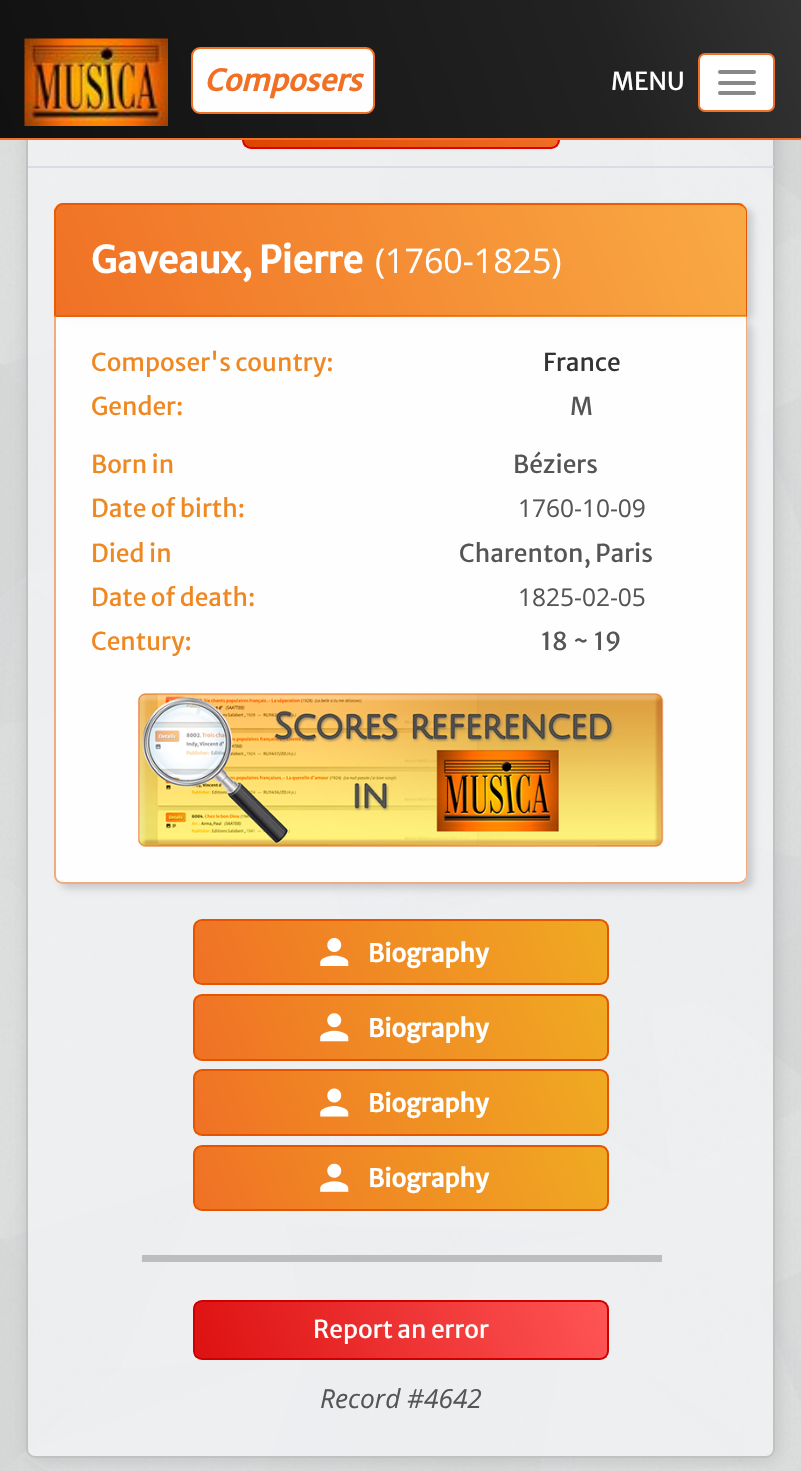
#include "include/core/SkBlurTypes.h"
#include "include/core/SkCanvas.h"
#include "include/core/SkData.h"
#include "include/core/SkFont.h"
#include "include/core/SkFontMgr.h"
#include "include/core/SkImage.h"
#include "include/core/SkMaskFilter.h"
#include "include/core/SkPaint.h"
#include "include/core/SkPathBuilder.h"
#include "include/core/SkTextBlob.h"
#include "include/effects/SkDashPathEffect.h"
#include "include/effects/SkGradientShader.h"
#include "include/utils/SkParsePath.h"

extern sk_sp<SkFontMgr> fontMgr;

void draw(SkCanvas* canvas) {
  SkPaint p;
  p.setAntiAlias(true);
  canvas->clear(SK_ColorWHITE);
  canvas->drawImageRect(SkImages::DeferredFromEncodedData(SkData::MakeFromFileName("images/1.png")), SkRect::MakeLTRB(0, 140, 801, 1471), SkSamplingOptions());
  canvas->save();
  canvas->clipPath(SkPathBuilder(SkPathFillType::kEvenOdd).moveTo(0, 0).lineTo(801, 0).lineTo(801, 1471).lineTo(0, 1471).close().moveTo(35, -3).lineTo(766, -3).cubicTo(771, -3, 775, 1, 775, 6).lineTo(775, 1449).cubicTo(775, 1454, 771, 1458, 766, 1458).lineTo(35, 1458).cubicTo(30, 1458, 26, 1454, 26, 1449).lineTo(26, 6).cubicTo(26, 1, 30, -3, 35, -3).close().detach(), true);
  p.setColor(SkColorSetARGB(102, 153, 153, 153));
  p.setMaskFilter(SkMaskFilter::MakeBlur(kNormal_SkBlurStyle, 9));
  canvas->drawRoundRect(SkRect::MakeLTRB(28, -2, 777, 1460), 9, 9, p);
  p.setMaskFilter(nullptr);
  canvas->restore();
  p.setColor(SkColorSetARGB(179, 245, 246, 249));
  canvas->drawRoundRect(SkRect::MakeLTRB(27, -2, 774, 1457), 8, 8, p);
  p.setStyle(SkPaint::kStroke_Style);
  p.setStrokeWidth(2);
  p.setColor(SkColorSetRGB(193, 193, 193));
  canvas->drawRoundRect(SkRect::MakeLTRB(27, -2, 774, 1457), 8, 8, p);
  canvas->save();
  canvas->clipPath(SkPathBuilder().moveTo(251, 89).lineTo(551, 89).cubicTo(556, 89, 560, 93, 560, 98).lineTo(560, 140).cubicTo(560, 145, 556, 149, 551, 149).lineTo(251, 149).cubicTo(246, 149, 242, 145, 242, 140).lineTo(242, 98).cubicTo(242, 93, 246, 89, 251, 89).close().detach(), true);
  p.setStyle(SkPaint::kFill_Style);
  {
    const SkColor colors[] = {SkColorSetRGB(221, 68, 0), SkColorSetRGB(240, 113, 37)};
    const float stops[] = {0, 1};
    const SkPoint ends[] = {{256, 178}, {546, 60}};
    p.setShader(SkGradientShader::MakeLinear(ends, colors, stops, 2, SkTileMode::kClamp));
    p.setAlpha(255);
  }
  canvas->drawRect(SkRect::MakeLTRB(243, 140, 558, 147), p);
  canvas->restore();
  p.setStyle(SkPaint::kStroke_Style);
  p.setShader(nullptr);
  p.setColor(SkColorSetRGB(221, 0, 0));
  canvas->drawRoundRect(SkRect::MakeLTRB(243, 90, 559, 148), 8, 8, p);
  p.setStyle(SkPaint::kFill_Style);
  {
    const SkColor colors[] = {SkColorSetRGB(17, 17, 17), SkColorSetRGB(34, 34, 34), SkColorSetRGB(51, 51, 51)};
    const float stops[] = {0, 0.75f, 1};
    const SkPoint ends[] = {{25, 206}, {777, -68}};
    p.setShader(SkGradientShader::MakeLinear(ends, colors, stops, 3, SkTileMode::kClamp));
    p.setAlpha(255);
  }
  canvas->drawRect(SkRect::MakeLTRB(0, 0, 801, 138), p);
  p.setShader(nullptr);
  p.setColor(SkColorSetRGB(240, 113, 37));
  canvas->drawRect(SkRect::MakeLTRB(0, 138, 801, 140), p);
  canvas->drawImageRect(SkImages::DeferredFromEncodedData(SkData::MakeFromFileName("images/2.png")), SkRect::MakeLTRB(24, 38, 168, 126), SkSamplingOptions());
  p.setColor(SkColorSetRGB(254, 254, 254));
  canvas->drawRoundRect(SkRect::MakeLTRB(192, 48, 374, 113), 8, 8, p);
  p.setStyle(SkPaint::kStroke_Style);
  p.setColor(SkColorSetRGB(240, 113, 37));
  canvas->drawRoundRect(SkRect::MakeLTRB(192, 48, 374, 113), 8, 8, p);
  p.setStyle(SkPaint::kFill_Style);
  p.setColor(SK_ColorWHITE);
  canvas->drawRoundRect(SkRect::MakeLTRB(699, 54, 774, 111), 6, 6, p);
  p.setStyle(SkPaint::kStroke_Style);
  p.setColor(SkColorSetRGB(240, 113, 37));
  canvas->drawRoundRect(SkRect::MakeLTRB(699, 54, 774, 111), 6, 6, p);
  p.setStyle(SkPaint::kFill_Style);
  p.setColor(SkColorSetRGB(136, 136, 136));
  canvas->drawRoundRect(SkRect::MakeLTRB(718, 70, 756, 74), 2, 2, p);
  canvas->drawRoundRect(SkRect::MakeLTRB(718, 81, 756, 85), 2, 2, p);
  canvas->drawRoundRect(SkRect::MakeLTRB(718, 91, 756, 95), 2, 2, p);
  p.setColor(SkColorSetRGB(217, 220, 228));
  canvas->drawRect(SkRect::MakeLTRB(28, 166, 774, 168), p);
  p.setColor(SkColorSetARGB(38, 0, 0, 0));
  p.setMaskFilter(SkMaskFilter::MakeBlur(kNormal_SkBlurStyle, 3.5f));
  canvas->drawRoundRect(SkRect::MakeLTRB(60, 208, 753, 322), 9, 9, p);
  p.setMaskFilter(nullptr);
  canvas->save();
  canvas->clipPath(SkPathBuilder().moveTo(63, 203).lineTo(738, 203).cubicTo(743, 203, 747, 207, 747, 212).lineTo(747, 317).lineTo(54, 317).lineTo(54, 212).cubicTo(54, 207, 58, 203, 63, 203).close().detach(), true);
  {
    const SkColor colors[] = {SkColorSetRGB(240, 113, 37), SkColorSetRGB(249, 170, 68)};
    const float stops[] = {0, 1};
    const SkPoint ends[] = {{85, 277}, {716, 22}};
    p.setShader(SkGradientShader::MakeLinear(ends, colors, stops, 2, SkTileMode::kClamp));
    p.setAlpha(255);
  }
  canvas->drawRect(SkRect::MakeLTRB(56, 203, 746, 205), p);
  {
    const SkColor colors[] = {SkColorSetRGB(240, 113, 37), SkColorSetRGB(249, 170, 68)};
    const float stops[] = {0, 1};
    const SkPoint ends[] = {{-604, 387}, {27, 132}};
    p.setShader(SkGradientShader::MakeLinear(ends, colors, stops, 2, SkTileMode::kClamp));
    p.setAlpha(255);
  }
  canvas->drawRect(SkRect::MakeLTRB(54, 205, 56, 315), p);
  {
    const SkColor colors[] = {SkColorSetRGB(240, 113, 37), SkColorSetRGB(249, 170, 68)};
    const float stops[] = {0, 1};
    const SkPoint ends[] = {{85, 387}, {716, 132}};
    p.setShader(SkGradientShader::MakeLinear(ends, colors, stops, 2, SkTileMode::kClamp));
    p.setAlpha(255);
  }
  canvas->drawRect(SkRect::MakeLTRB(56, 205, 746, 315), p);
  {
    const SkColor colors[] = {SkColorSetRGB(240, 113, 37), SkColorSetRGB(249, 170, 68)};
    const float stops[] = {0, 1};
    const SkPoint ends[] = {{775, 387}, {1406, 132}};
    p.setShader(SkGradientShader::MakeLinear(ends, colors, stops, 2, SkTileMode::kClamp));
    p.setAlpha(255);
  }
  canvas->drawRect(SkRect::MakeLTRB(746, 205, 747, 315), p);
  canvas->restore();
  {
    const SkColor colors[] = {SkColorSetRGB(240, 113, 37), SkColorSetRGB(249, 170, 68)};
    const float stops[] = {0, 1};
    const SkPoint ends[] = {{-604, 498}, {27, 243}};
    p.setShader(SkGradientShader::MakeLinear(ends, colors, stops, 2, SkTileMode::kClamp));
    p.setAlpha(255);
  }
  canvas->drawRect(SkRect::MakeLTRB(54, 315, 56, 317), p);
  {
    const SkColor colors[] = {SkColorSetRGB(240, 113, 37), SkColorSetRGB(249, 170, 68)};
    const float stops[] = {0, 1};
    const SkPoint ends[] = {{85, 498}, {716, 243}};
    p.setShader(SkGradientShader::MakeLinear(ends, colors, stops, 2, SkTileMode::kClamp));
    p.setAlpha(255);
  }
  canvas->drawRect(SkRect::MakeLTRB(56, 315, 746, 317), p);
  {
    const SkColor colors[] = {SkColorSetRGB(240, 113, 37), SkColorSetRGB(249, 170, 68)};
    const float stops[] = {0, 1};
    const SkPoint ends[] = {{775, 498}, {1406, 243}};
    p.setShader(SkGradientShader::MakeLinear(ends, colors, stops, 2, SkTileMode::kClamp));
    p.setAlpha(255);
  }
  canvas->drawRect(SkRect::MakeLTRB(746, 315, 747, 317), p);
  p.setShader(nullptr);
  p.setColor(SkColorSetARGB(230, 229, 85, 0));
  canvas->drawPath(SkPathBuilder().moveTo(63, 203).cubicTo(61, 203, 58, 204, 57, 206).lineTo(58, 207).cubicTo(59, 206, 61, 205, 63, 205).lineTo(738, 205).cubicTo(740, 205, 742, 206, 743, 207).lineTo(744, 206).cubicTo(743, 204, 741, 203, 738, 203).close().detach(), p);
  canvas->drawPath(SkPathBuilder().moveTo(744, 206).cubicTo(746, 207, 747, 210, 747, 212).lineTo(747, 316).lineTo(746, 315).lineTo(746, 212).cubicTo(746, 210, 745, 208, 743, 207).close().detach(), p);
  p.setColor(SkColorSetARGB(153, 229, 85, 0));
  canvas->drawPath(SkPathBuilder().moveTo(747, 316).lineTo(54, 317).lineTo(56, 315).lineTo(746, 315).close().detach(), p);
  p.setColor(SkColorSetARGB(230, 229, 85, 0));
  canvas->drawPath(SkPathBuilder().moveTo(54, 317).lineTo(54, 210).cubicTo(55, 208, 56, 207, 57, 206).lineTo(58, 207).lineTo(56, 211).lineTo(56, 315).close().detach(), p);
  canvas->save();
  canvas->clipPath(SkPathBuilder(SkPathFillType::kEvenOdd).moveTo(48, 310).lineTo(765, 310).lineTo(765, 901).lineTo(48, 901).close().moveTo(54, 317).lineTo(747, 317).lineTo(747, 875).cubicTo(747, 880, 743, 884, 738, 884).lineTo(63, 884).cubicTo(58, 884, 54, 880, 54, 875).close().detach(), true);
  p.setColor(SkColorSetARGB(38, 0, 0, 0));
  p.setMaskFilter(SkMaskFilter::MakeBlur(kNormal_SkBlurStyle, 3.5f));
  canvas->drawRoundRect(SkRect::MakeLTRB(60, 322, 753, 889), 9, 9, p);
  p.setMaskFilter(nullptr);
  canvas->restore();
  p.setColor(SkColorSetARGB(230, 255, 255, 255));
  canvas->drawPath(SkPathBuilder().moveTo(54, 317).lineTo(747, 317).lineTo(747, 875).cubicTo(747, 880, 743, 884, 738, 884).lineTo(63, 884).cubicTo(58, 884, 54, 880, 54, 875).close().detach(), p);
  p.setColor(SkColorSetARGB(128, 229, 85, 0));
  canvas->drawPath(SkPathBuilder(SkPathFillType::kEvenOdd).moveTo(54, 317).lineTo(747, 317).lineTo(747, 875).cubicTo(747, 880, 743, 884, 738, 884).lineTo(63, 884).cubicTo(58, 884, 54, 880, 54, 875).close().moveTo(56, 317).lineTo(746, 317).lineTo(746, 875).cubicTo(746, 879, 742, 882, 738, 882).lineTo(63, 882).cubicTo(59, 882, 56, 879, 56, 875).close().detach(), p);
  canvas->drawImageRect(SkImages::DeferredFromEncodedData(SkData::MakeFromFileName("images/3.png")), SkRect::MakeLTRB(138, 693, 664, 847), SkSamplingOptions());
  canvas->save();
  canvas->clipPath(SkPathBuilder().moveTo(202, 919).lineTo(600, 919).cubicTo(605, 919, 609, 923, 609, 928).lineTo(609, 976).cubicTo(609, 981, 605, 985, 600, 985).lineTo(202, 985).cubicTo(197, 985, 193, 981, 193, 976).lineTo(193, 928).cubicTo(193, 923, 197, 919, 202, 919).close().detach(), true);
  {
    const SkColor colors[] = {SkColorSetRGB(240, 113, 37), SkColorSetRGB(240, 170, 34)};
    const float stops[] = {0, 1};
    const SkPoint ends[] = {{212, 1028}, {589, 876}};
    p.setShader(SkGradientShader::MakeLinear(ends, colors, stops, 2, SkTileMode::kClamp));
    p.setAlpha(255);
  }
  canvas->drawRect(SkRect::MakeLTRB(194, 921, 607, 984), p);
  canvas->restore();
  p.setStyle(SkPaint::kStroke_Style);
  p.setShader(nullptr);
  p.setColor(SkColorSetRGB(229, 85, 0));
  canvas->drawRoundRect(SkRect::MakeLTRB(194, 920, 608, 984), 8, 8, p);
  canvas->drawImageRect(SkImages::DeferredFromEncodedData(SkData::MakeFromFileName("images/4.png")), SkRect::MakeLTRB(320, 938, 349, 966), SkSamplingOptions());
  canvas->save();
  canvas->clipPath(SkPathBuilder().moveTo(202, 994).lineTo(600, 994).cubicTo(605, 994, 609, 998, 609, 1003).lineTo(609, 1052).cubicTo(609, 1057, 605, 1061, 600, 1061).lineTo(202, 1061).cubicTo(197, 1061, 193, 1057, 193, 1052).lineTo(193, 1003).cubicTo(193, 998, 197, 994, 202, 994).close().detach(), true);
  p.setStyle(SkPaint::kFill_Style);
  {
    const SkColor colors[] = {SkColorSetRGB(240, 113, 37), SkColorSetRGB(240, 170, 34)};
    const float stops[] = {0, 1};
    const SkPoint ends[] = {{212, 1103}, {589, 951}};
    p.setShader(SkGradientShader::MakeLinear(ends, colors, stops, 2, SkTileMode::kClamp));
    p.setAlpha(255);
  }
  canvas->drawRect(SkRect::MakeLTRB(194, 996, 607, 1059), p);
  canvas->restore();
  p.setStyle(SkPaint::kStroke_Style);
  p.setShader(nullptr);
  p.setColor(SkColorSetRGB(229, 85, 0));
  canvas->drawRoundRect(SkRect::MakeLTRB(194, 995, 608, 1060), 8, 8, p);
  canvas->drawImageRect(SkImages::DeferredFromEncodedData(SkData::MakeFromFileName("images/5.png")), SkRect::MakeLTRB(320, 1013, 349, 1042), SkSamplingOptions());
  canvas->save();
  canvas->clipPath(SkPathBuilder().moveTo(202, 1069).lineTo(600, 1069).cubicTo(605, 1069, 609, 1073, 609, 1078).lineTo(609, 1127).cubicTo(609, 1132, 605, 1136, 600, 1136).lineTo(202, 1136).cubicTo(197, 1136, 193, 1132, 193, 1127).lineTo(193, 1078).cubicTo(193, 1073, 197, 1069, 202, 1069).close().detach(), true);
  p.setStyle(SkPaint::kFill_Style);
  {
    const SkColor colors[] = {SkColorSetRGB(240, 113, 37), SkColorSetRGB(240, 170, 34)};
    const float stops[] = {0, 1};
    const SkPoint ends[] = {{212, 1179}, {589, 1026}};
    p.setShader(SkGradientShader::MakeLinear(ends, colors, stops, 2, SkTileMode::kClamp));
    p.setAlpha(255);
  }
  canvas->drawRect(SkRect::MakeLTRB(194, 1071, 607, 1134), p);
  canvas->restore();
  p.setStyle(SkPaint::kStroke_Style);
  p.setShader(nullptr);
  p.setColor(SkColorSetRGB(229, 85, 0));
  canvas->drawRoundRect(SkRect::MakeLTRB(194, 1070, 608, 1135), 8, 8, p);
  canvas->drawImageRect(SkImages::DeferredFromEncodedData(SkData::MakeFromFileName("images/6.png")), SkRect::MakeLTRB(320, 1088, 349, 1117), SkSamplingOptions());
  canvas->save();
  canvas->clipPath(SkPathBuilder().moveTo(202, 1145).lineTo(600, 1145).cubicTo(605, 1145, 609, 1149, 609, 1154).lineTo(609, 1202).cubicTo(609, 1207, 605, 1211, 600, 1211).lineTo(202, 1211).cubicTo(197, 1211, 193, 1207, 193, 1202).lineTo(193, 1154).cubicTo(193, 1149, 197, 1145, 202, 1145).close().detach(), true);
  p.setStyle(SkPaint::kFill_Style);
  {
    const SkColor colors[] = {SkColorSetRGB(240, 113, 37), SkColorSetRGB(240, 170, 34)};
    const float stops[] = {0, 1};
    const SkPoint ends[] = {{212, 1254}, {589, 1102}};
    p.setShader(SkGradientShader::MakeLinear(ends, colors, stops, 2, SkTileMode::kClamp));
    p.setAlpha(255);
  }
  canvas->drawRect(SkRect::MakeLTRB(194, 1146, 607, 1209), p);
  canvas->restore();
  p.setStyle(SkPaint::kStroke_Style);
  p.setShader(nullptr);
  p.setColor(SkColorSetRGB(229, 85, 0));
  canvas->drawRoundRect(SkRect::MakeLTRB(194, 1146, 608, 1210), 8, 8, p);
  canvas->drawImageRect(SkImages::DeferredFromEncodedData(SkData::MakeFromFileName("images/7.png")), SkRect::MakeLTRB(320, 1163, 349, 1192), SkSamplingOptions());
  p.setStyle(SkPaint::kFill_Style);
  p.setColor(SkColorSetRGB(189, 189, 189));
  canvas->drawRect(SkRect::MakeLTRB(142, 1255, 662, 1262), p);
  canvas->save();
  canvas->clipPath(SkPathBuilder().moveTo(202, 1300).lineTo(600, 1300).cubicTo(605, 1300, 609, 1304, 609, 1309).lineTo(609, 1351).cubicTo(609, 1356, 605, 1360, 600, 1360).lineTo(202, 1360).cubicTo(197, 1360, 193, 1356, 193, 1351).lineTo(193, 1309).cubicTo(193, 1304, 197, 1300, 202, 1300).close().detach(), true);
  {
    const SkColor colors[] = {SkColorSetRGB(221, 17, 17), SkColorSetRGB(255, 85, 85)};
    const float stops[] = {0, 1};
    const SkPoint ends[] = {{214, 1406}, {588, 1254}};
    p.setShader(SkGradientShader::MakeLinear(ends, colors, stops, 2, SkTileMode::kClamp));
    p.setAlpha(255);
  }
  canvas->drawRect(SkRect::MakeLTRB(194, 1302, 607, 1358), p);
  canvas->restore();
  p.setStyle(SkPaint::kStroke_Style);
  p.setShader(nullptr);
  p.setColor(SkColorSetRGB(204, 0, 0));
  canvas->drawRoundRect(SkRect::MakeLTRB(194, 1301, 608, 1359), 8, 8, p);
  SkFont font1(fontMgr->matchFamilyStyle("Merriweather Sans", SkFontStyle::BoldItalic()), 29.5f);
  font1.setSubpixel(true);
  p.setStyle(SkPaint::kFill_Style);
  p.setColor(SkColorSetRGB(240, 113, 37));
  canvas->drawString("Composers", 204, 91, font1, p);
  SkFont font2(fontMgr->matchFamilyStyle("Merriweather Sans", SkFontStyle::Normal()), 24.5f);
  font2.setSubpixel(true);
  p.setColor(SK_ColorWHITE);
  canvas->drawString("MENU", 611, 90, font2, p);
  SkFont font3(fontMgr->matchFamilyStyle("Merriweather Sans", SkFontStyle::Bold()), 36.75f);
  font3.setSubpixel(true);
  canvas->drawString("Gaveaux, Pierre", 91, 273, font3, p);
  SkFont font4(fontMgr->matchFamilyStyle("Open Sans", SkFontStyle::Normal()), 34);
  font4.setSubpixel(true);
  canvas->drawString("(1760-1825)", 375, 273, font4, p);
  p.setColor(SkColorSetRGB(240, 136, 34));
  canvas->drawString("Composer's country:", 91, 371, font2, p);
  p.setColor(SkColorSetRGB(51, 51, 51));
  canvas->drawString("France", 543, 371, font2, p);
  p.setColor(SkColorSetRGB(240, 136, 34));
  canvas->drawString("Gender:", 91, 415, font2, p);
  p.setColor(SkColorSetRGB(85, 85, 85));
  canvas->drawString("M", 570, 415, font2, p);
  p.setColor(SkColorSetRGB(240, 136, 34));
  canvas->drawString("Born in", 91, 473, font2, p);
  p.setColor(SkColorSetRGB(85, 85, 85));
  canvas->drawString("Béziers", 513, 473, font2, p);
  p.setColor(SkColorSetRGB(240, 136, 34));
  canvas->drawString("Date of birth:", 91, 517, font2, p);
  SkFont font5(fontMgr->matchFamilyStyle("Open Sans", SkFontStyle::Normal()), 24.5f);
  font5.setSubpixel(true);
  p.setColor(SkColorSetRGB(85, 85, 85));
  canvas->drawString("1760-10-09", 518, 517, font5, p);
  p.setColor(SkColorSetRGB(240, 136, 34));
  canvas->drawString("Died in", 91, 562, font2, p);
  p.setColor(SkColorSetRGB(85, 85, 85));
  canvas->drawString("Charenton, Paris", 459, 562, font2, p);
  p.setColor(SkColorSetRGB(240, 136, 34));
  canvas->drawString("Date of death:", 91, 606, font2, p);
  p.setColor(SkColorSetRGB(85, 85, 85));
  canvas->drawString("1825-02-05", 518, 606, font5, p);
  p.setColor(SkColorSetRGB(240, 136, 34));
  canvas->drawString("Century:", 91, 650, font2, p);
  p.setColor(SkColorSetRGB(85, 85, 85));
  canvas->drawString("18 ~ 19", 541, 650, font2, p);
  SkFont font6(fontMgr->matchFamilyStyle("Merriweather Sans", SkFontStyle::Bold()), 24.5f);
  font6.setSubpixel(true);
  p.setColor(SK_ColorWHITE);
  canvas->drawString("Biography", 368, 962, font6, p);
  canvas->drawString("Biography", 368, 1037, font6, p);
  canvas->drawString("Biography", 368, 1112, font6, p);
  canvas->drawString("Biography", 368, 1187, font6, p);
  canvas->drawString("Report an error", 313, 1338, font2, p);
  SkFont font7(fontMgr->matchFamilyStyle("Open Sans", SkFontStyle::Italic()), 26.25f);
  font7.setSubpixel(true);
  p.setColor(SkColorSetRGB(85, 85, 85));
  canvas->drawString("Record #4642", 320, 1408, font7, p);
}
